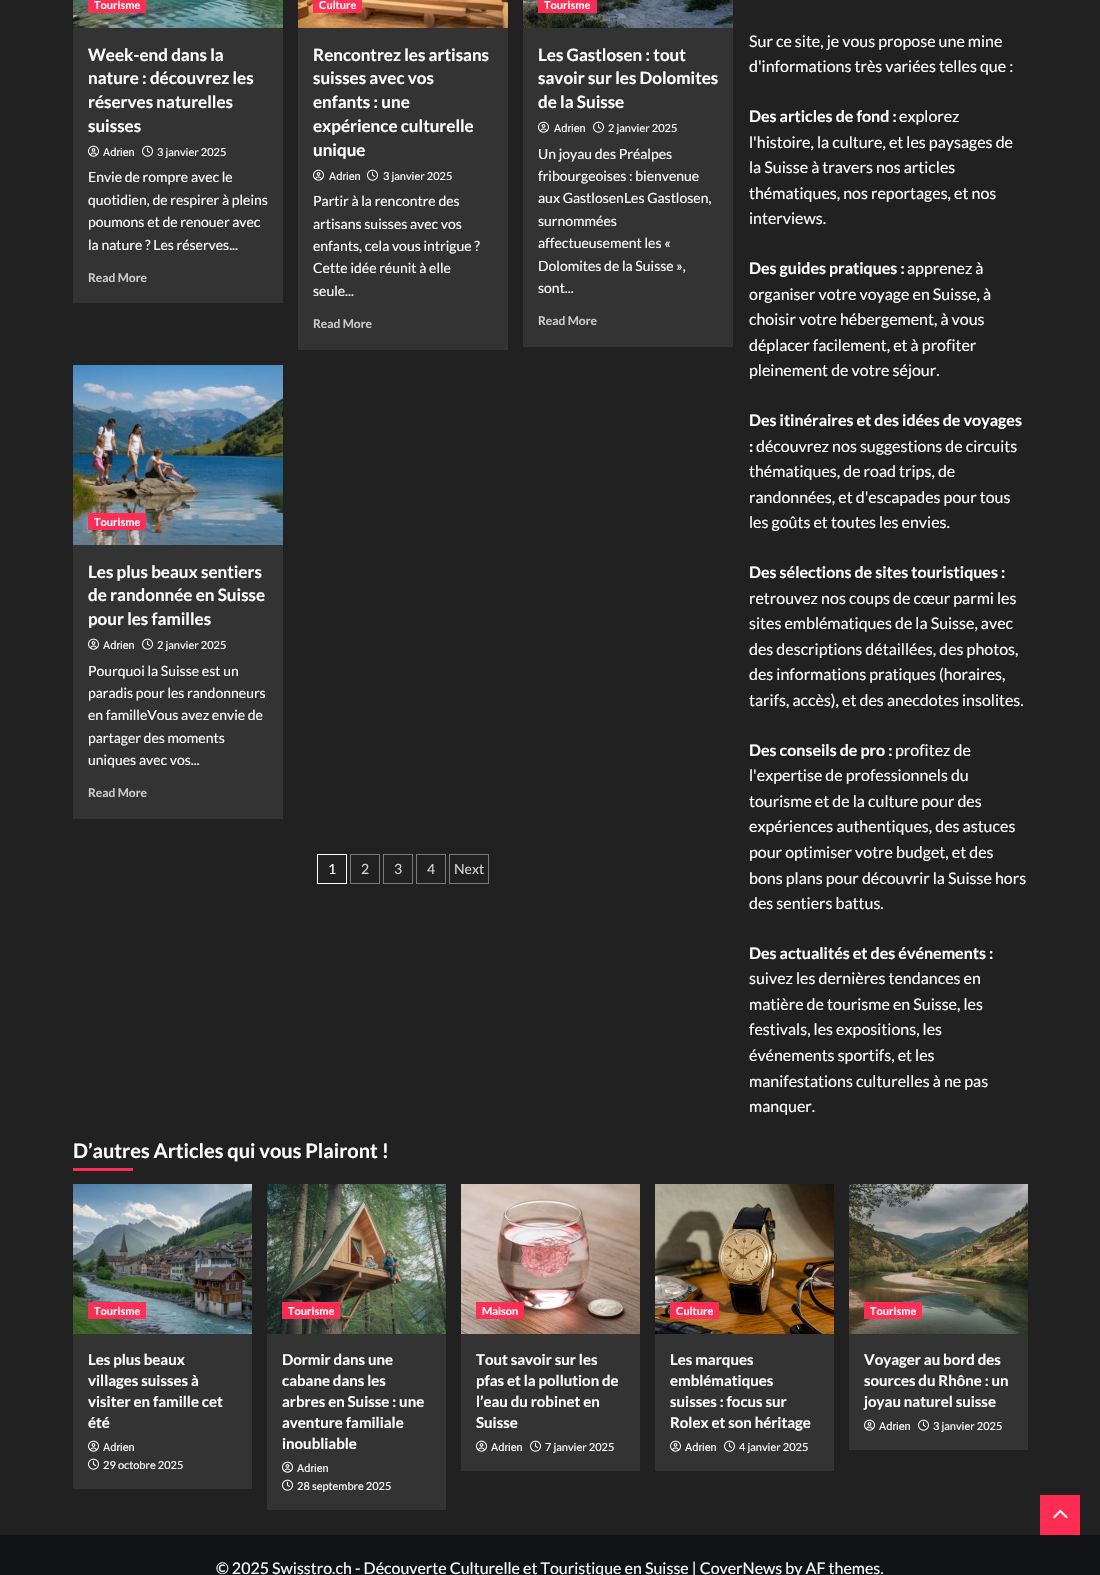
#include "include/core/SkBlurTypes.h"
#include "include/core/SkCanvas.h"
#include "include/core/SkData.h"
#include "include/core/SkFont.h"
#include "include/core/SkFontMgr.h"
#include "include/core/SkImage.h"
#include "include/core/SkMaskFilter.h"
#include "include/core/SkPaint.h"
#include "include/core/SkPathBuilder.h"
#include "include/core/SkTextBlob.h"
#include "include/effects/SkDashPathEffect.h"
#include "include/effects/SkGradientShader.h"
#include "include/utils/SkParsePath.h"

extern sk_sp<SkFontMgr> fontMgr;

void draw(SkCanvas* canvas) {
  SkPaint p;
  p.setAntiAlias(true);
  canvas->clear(SkColorSetRGB(33, 33, 33));
  p.setColor(SkColorSetRGB(51, 51, 51));
  canvas->drawRect(SkRect::MakeLTRB(73, 28, 283, 303), p);
  canvas->drawImageRect(SkImages::DeferredFromEncodedData(SkData::MakeFromFileName("images/1.png")), SkRect::MakeLTRB(73, 0, 283, 28), SkSamplingOptions());
  p.setColor(SkColorSetARGB(245, 255, 44, 84));
  canvas->drawRect(SkRect::MakeLTRB(88, 0, 146, 13), p);
  canvas->drawImageRect(SkImages::DeferredFromEncodedData(SkData::MakeFromFileName("images/2.png")), SkRect::MakeLTRB(88, 145, 99, 157), SkSamplingOptions());
  canvas->drawImageRect(SkImages::DeferredFromEncodedData(SkData::MakeFromFileName("images/3.png")), SkRect::MakeLTRB(142, 145, 153, 157), SkSamplingOptions());
  p.setColor(SkColorSetRGB(51, 51, 51));
  canvas->drawRect(SkRect::MakeLTRB(298, 28, 508, 350), p);
  canvas->drawImageRect(SkImages::DeferredFromEncodedData(SkData::MakeFromFileName("images/4.png")), SkRect::MakeLTRB(298, 0, 508, 28), SkSamplingOptions());
  p.setColor(SkColorSetARGB(245, 255, 44, 84));
  canvas->drawRect(SkRect::MakeLTRB(313, 0, 362, 13), p);
  canvas->drawImageRect(SkImages::DeferredFromEncodedData(SkData::MakeFromFileName("images/2.png")), SkRect::MakeLTRB(313, 169, 324, 181), SkSamplingOptions());
  canvas->drawImageRect(SkImages::DeferredFromEncodedData(SkData::MakeFromFileName("images/3.png")), SkRect::MakeLTRB(367, 169, 378, 181), SkSamplingOptions());
  p.setColor(SkColorSetRGB(51, 51, 51));
  canvas->drawRect(SkRect::MakeLTRB(523, 28, 733, 347), p);
  canvas->drawImageRect(SkImages::DeferredFromEncodedData(SkData::MakeFromFileName("images/5.png")), SkRect::MakeLTRB(523, 0, 733, 28), SkSamplingOptions());
  p.setColor(SkColorSetARGB(245, 255, 44, 84));
  canvas->drawRect(SkRect::MakeLTRB(538, 0, 597, 13), p);
  canvas->drawImageRect(SkImages::DeferredFromEncodedData(SkData::MakeFromFileName("images/2.png")), SkRect::MakeLTRB(538, 121, 549, 133), SkSamplingOptions());
  canvas->drawImageRect(SkImages::DeferredFromEncodedData(SkData::MakeFromFileName("images/3.png")), SkRect::MakeLTRB(593, 121, 604, 133), SkSamplingOptions());
  p.setColor(SkColorSetRGB(51, 51, 51));
  canvas->drawRect(SkRect::MakeLTRB(73, 545, 283, 819), p);
  canvas->drawImageRect(SkImages::DeferredFromEncodedData(SkData::MakeFromFileName("images/6.png")), SkRect::MakeLTRB(73, 365, 283, 545), SkSamplingOptions());
  p.setColor(SkColorSetARGB(245, 255, 44, 84));
  canvas->drawRect(SkRect::MakeLTRB(88, 513, 146, 530), p);
  canvas->drawImageRect(SkImages::DeferredFromEncodedData(SkData::MakeFromFileName("images/2.png")), SkRect::MakeLTRB(88, 638, 99, 650), SkSamplingOptions());
  canvas->drawImageRect(SkImages::DeferredFromEncodedData(SkData::MakeFromFileName("images/3.png")), SkRect::MakeLTRB(142, 638, 153, 650), SkSamplingOptions());
  p.setStyle(SkPaint::kStroke_Style);
  p.setStrokeWidth(1);
  p.setColor(SK_ColorWHITE);
  canvas->drawRect(SkRect::MakeLTRB(317.5f, 854.5f, 346.5f, 883.5f), p);
  p.setColor(SkColorSetRGB(122, 122, 122));
  canvas->drawRect(SkRect::MakeLTRB(350.5f, 854.5f, 379.5f, 883.5f), p);
  canvas->drawRect(SkRect::MakeLTRB(383.5f, 854.5f, 412.5f, 883.5f), p);
  canvas->drawRect(SkRect::MakeLTRB(416.5f, 854.5f, 445.5f, 883.5f), p);
  canvas->drawRect(SkRect::MakeLTRB(449.5f, 854.5f, 488.5f, 883.5f), p);
  p.setStyle(SkPaint::kFill_Style);
  p.setColor(SkColorSetRGB(255, 44, 84));
  canvas->drawRect(SkRect::MakeLTRB(73, 1168, 133, 1171), p);
  p.setColor(SkColorSetRGB(51, 51, 51));
  canvas->drawRect(SkRect::MakeLTRB(73, 1334, 252, 1489), p);
  canvas->drawImageRect(SkImages::DeferredFromEncodedData(SkData::MakeFromFileName("images/7.png")), SkRect::MakeLTRB(73, 1184, 252, 1334), SkSamplingOptions());
  p.setColor(SkColorSetARGB(245, 255, 44, 84));
  canvas->drawRect(SkRect::MakeLTRB(88, 1302, 146, 1319), p);
  canvas->drawImageRect(SkImages::DeferredFromEncodedData(SkData::MakeFromFileName("images/2.png")), SkRect::MakeLTRB(88, 1440, 99, 1452), SkSamplingOptions());
  canvas->drawImageRect(SkImages::DeferredFromEncodedData(SkData::MakeFromFileName("images/3.png")), SkRect::MakeLTRB(88, 1458, 99, 1470), SkSamplingOptions());
  p.setColor(SkColorSetRGB(51, 51, 51));
  canvas->drawRect(SkRect::MakeLTRB(267, 1334, 446, 1510), p);
  canvas->drawImageRect(SkImages::DeferredFromEncodedData(SkData::MakeFromFileName("images/8.png")), SkRect::MakeLTRB(267, 1184, 446, 1334), SkSamplingOptions());
  p.setColor(SkColorSetARGB(245, 255, 44, 84));
  canvas->drawRect(SkRect::MakeLTRB(282, 1302, 340, 1319), p);
  canvas->drawImageRect(SkImages::DeferredFromEncodedData(SkData::MakeFromFileName("images/2.png")), SkRect::MakeLTRB(282, 1461, 293, 1473), SkSamplingOptions());
  canvas->drawImageRect(SkImages::DeferredFromEncodedData(SkData::MakeFromFileName("images/3.png")), SkRect::MakeLTRB(282, 1479, 293, 1491), SkSamplingOptions());
  p.setColor(SkColorSetRGB(51, 51, 51));
  canvas->drawRect(SkRect::MakeLTRB(461, 1334, 640, 1471), p);
  canvas->drawImageRect(SkImages::DeferredFromEncodedData(SkData::MakeFromFileName("images/9.png")), SkRect::MakeLTRB(461, 1184, 640, 1334), SkSamplingOptions());
  p.setColor(SkColorSetARGB(245, 255, 44, 84));
  canvas->drawRect(SkRect::MakeLTRB(476, 1302, 524, 1319), p);
  canvas->drawImageRect(SkImages::DeferredFromEncodedData(SkData::MakeFromFileName("images/2.png")), SkRect::MakeLTRB(476, 1440, 487, 1452), SkSamplingOptions());
  canvas->drawImageRect(SkImages::DeferredFromEncodedData(SkData::MakeFromFileName("images/3.png")), SkRect::MakeLTRB(530, 1440, 541, 1452), SkSamplingOptions());
  p.setColor(SkColorSetRGB(51, 51, 51));
  canvas->drawRect(SkRect::MakeLTRB(655, 1334, 834, 1471), p);
  canvas->drawImageRect(SkImages::DeferredFromEncodedData(SkData::MakeFromFileName("images/10.png")), SkRect::MakeLTRB(655, 1184, 834, 1334), SkSamplingOptions());
  p.setColor(SkColorSetARGB(245, 255, 44, 84));
  canvas->drawRect(SkRect::MakeLTRB(670, 1302, 719, 1319), p);
  canvas->drawImageRect(SkImages::DeferredFromEncodedData(SkData::MakeFromFileName("images/2.png")), SkRect::MakeLTRB(670, 1440, 681, 1452), SkSamplingOptions());
  canvas->drawImageRect(SkImages::DeferredFromEncodedData(SkData::MakeFromFileName("images/3.png")), SkRect::MakeLTRB(724, 1440, 735, 1452), SkSamplingOptions());
  p.setColor(SkColorSetRGB(51, 51, 51));
  canvas->drawRect(SkRect::MakeLTRB(849, 1334, 1028, 1450), p);
  canvas->drawImageRect(SkImages::DeferredFromEncodedData(SkData::MakeFromFileName("images/11.png")), SkRect::MakeLTRB(849, 1184, 1028, 1334), SkSamplingOptions());
  p.setColor(SkColorSetARGB(245, 255, 44, 84));
  canvas->drawRect(SkRect::MakeLTRB(864, 1302, 922, 1319), p);
  canvas->drawImageRect(SkImages::DeferredFromEncodedData(SkData::MakeFromFileName("images/2.png")), SkRect::MakeLTRB(864, 1419, 875, 1431), SkSamplingOptions());
  canvas->drawImageRect(SkImages::DeferredFromEncodedData(SkData::MakeFromFileName("images/3.png")), SkRect::MakeLTRB(918, 1419, 929, 1431), SkSamplingOptions());
  p.setColor(SkColorSetRGB(18, 19, 20));
  canvas->drawRect(SkRect::MakeLTRB(0, 1535, 1100, 1575), p);
  p.setColor(SkColorSetRGB(255, 44, 84));
  canvas->drawRect(SkRect::MakeLTRB(1040, 1495, 1080, 1535), p);
  canvas->drawImageRect(SkImages::DeferredFromEncodedData(SkData::MakeFromFileName("images/12.png")), SkRect::MakeLTRB(1053, 1509, 1068, 1519), SkSamplingOptions());
  SkFont font1(fontMgr->matchFamilyStyle("Lato", SkFontStyle::Bold()), 11);
  font1.setSubpixel(true);
  p.setColor(SkColorSetRGB(255, 247, 248));
  canvas->drawString("Tourisme", 94, 9, font1, p);
  SkFont font2(fontMgr->matchFamilyStyle("Lato", SkFontStyle::Bold()), 17);
  font2.setSubpixel(true);
  p.setColor(SK_ColorWHITE);
  canvas->drawString("Week-end dans la", 88, 61, font2, p);
  canvas->drawString("nature : découvrez les", 88, 84, font2, p);
  canvas->drawString("réserves naturelles", 88, 108, font2, p);
  canvas->drawString("suisses", 88, 132, font2, p);
  SkFont font3(fontMgr->matchFamilyStyle("Roboto", SkFontStyle::Normal()), 11);
  font3.setSubpixel(true);
  canvas->drawString("Adrien", 103, 156, font3, p);
  SkFont font4(fontMgr->matchFamilyStyle("Lato", SkFontStyle::Normal()), 11);
  font4.setSubpixel(true);
  canvas->drawString("3 janvier 2025", 157, 156, font4, p);
  SkFont font5(fontMgr->matchFamilyStyle("Lato", SkFontStyle::Normal()), 14);
  font5.setSubpixel(true);
  canvas->drawString("Envie de rompre avec le", 88, 182, font5, p);
  canvas->drawString("quotidien, de respirer à pleins", 88, 205, font5, p);
  canvas->drawString("poumons et de renouer avec", 88, 227, font5, p);
  canvas->drawString("la nature ? Les réserves...", 88, 250, font5, p);
  SkFont font6(fontMgr->matchFamilyStyle("Lato", SkFontStyle::Bold()), 12);
  font6.setSubpixel(true);
  p.setColor(SkColorSetRGB(204, 204, 204));
  canvas->drawString("Read More", 88, 282, font6, p);
  p.setColor(SkColorSetRGB(255, 247, 248));
  canvas->drawString("Culture", 319, 9, font1, p);
  p.setColor(SK_ColorWHITE);
  canvas->drawString("Rencontrez les artisans", 313, 61, font2, p);
  canvas->drawString("suisses avec vos", 313, 84, font2, p);
  canvas->drawString("enfants : une", 313, 108, font2, p);
  canvas->drawString("expérience culturelle", 313, 132, font2, p);
  canvas->drawString("unique", 313, 156, font2, p);
  canvas->drawString("Adrien", 329, 180, font3, p);
  canvas->drawString("3 janvier 2025", 383, 180, font4, p);
  canvas->drawString("Partir à la rencontre des", 313, 206, font5, p);
  canvas->drawString("artisans suisses avec vos", 313, 229, font5, p);
  canvas->drawString("enfants, cela vous intrigue ?", 313, 251, font5, p);
  canvas->drawString("Cette idée réunit à elle", 313, 273, font5, p);
  canvas->drawString("seule...", 313, 296, font5, p);
  p.setColor(SkColorSetRGB(204, 204, 204));
  canvas->drawString("Read More", 313, 328, font6, p);
  p.setColor(SkColorSetRGB(255, 247, 248));
  canvas->drawString("Tourisme", 544, 9, font1, p);
  p.setColor(SK_ColorWHITE);
  canvas->drawString("Les Gastlosen : tout", 538, 61, font2, p);
  canvas->drawString("savoir sur les Dolomites", 538, 84, font2, p);
  canvas->drawString("de la Suisse", 538, 108, font2, p);
  canvas->drawString("Adrien", 554, 132, font3, p);
  canvas->drawString("2 janvier 2025", 608, 132, font4, p);
  canvas->drawString("Un joyau des Préalpes", 538, 159, font5, p);
  canvas->drawString("fribourgeoises : bienvenue", 538, 181, font5, p);
  canvas->drawString("aux GastlosenLes Gastlosen,", 538, 203, font5, p);
  canvas->drawString("surnommées", 538, 226, font5, p);
  canvas->drawString("affectueusement les «", 538, 248, font5, p);
  canvas->drawString("Dolomites de la Suisse »,", 538, 271, font5, p);
  canvas->drawString("sont...", 538, 293, font5, p);
  p.setColor(SkColorSetRGB(204, 204, 204));
  canvas->drawString("Read More", 538, 325, font6, p);
  p.setColor(SkColorSetRGB(255, 247, 248));
  canvas->drawString("Tourisme", 94, 526, font1, p);
  p.setColor(SK_ColorWHITE);
  canvas->drawString("Les plus beaux sentiers", 88, 578, font2, p);
  canvas->drawString("de randonnée en Suisse", 88, 601, font2, p);
  canvas->drawString("pour les familles", 88, 625, font2, p);
  canvas->drawString("Adrien", 103, 649, font3, p);
  canvas->drawString("2 janvier 2025", 157, 649, font4, p);
  canvas->drawString("Pourquoi la Suisse est un", 88, 676, font5, p);
  canvas->drawString("paradis pour les randonneurs", 88, 698, font5, p);
  canvas->drawString("en familleVous avez envie de", 88, 720, font5, p);
  canvas->drawString("partager des moments", 88, 743, font5, p);
  canvas->drawString("uniques avec vos...", 88, 765, font5, p);
  p.setColor(SkColorSetRGB(204, 204, 204));
  canvas->drawString("Read More", 88, 797, font6, p);
  p.setColor(SK_ColorWHITE);
  canvas->drawString("1", 328, 874, font5, p);
  p.setColor(SkColorSetRGB(211, 211, 211));
  canvas->drawString("2", 361, 874, font5, p);
  canvas->drawString("3", 394, 874, font5, p);
  canvas->drawString("4", 427, 874, font5, p);
  canvas->drawString("Next", 454, 874, font5, p);
  SkFont font7(fontMgr->matchFamilyStyle("Lato", SkFontStyle::Normal()), 16);
  font7.setSubpixel(true);
  p.setColor(SK_ColorWHITE);
  canvas->drawString("Sur ce site, je vous propose une mine", 749, 47, font7, p);
  canvas->drawString("d'informations très variées telles que :", 749, 72, font7, p);
  SkFont font8(fontMgr->matchFamilyStyle("Lato", SkFontStyle::Bold()), 16);
  font8.setSubpixel(true);
  canvas->drawString("Des articles de fond :", 749, 122, font8, p);
  canvas->drawString("explorez", 899, 122, font7, p);
  canvas->drawString("l'histoire, la culture, et les paysages de", 749, 148, font7, p);
  canvas->drawString("la Suisse à travers nos articles", 749, 173, font7, p);
  canvas->drawString("thématiques, nos reportages, et nos", 749, 199, font7, p);
  canvas->drawString("interviews.", 749, 224, font7, p);
  canvas->drawString("Des guides pratiques :", 749, 274, font8, p);
  canvas->drawString("apprenez à", 907, 274, font7, p);
  canvas->drawString("organiser votre voyage en Suisse, à", 749, 300, font7, p);
  canvas->drawString("choisir votre hébergement, à vous", 749, 325, font7, p);
  canvas->drawString("déplacer facilement, et à profiter", 749, 351, font7, p);
  canvas->drawString("pleinement de votre séjour.", 749, 376, font7, p);
  canvas->drawString("Des itinéraires et des idées de voyages", 749, 426, font8, p);
  canvas->drawString(":", 749, 452, font8, p);
  canvas->drawString("découvrez nos suggestions de circuits", 756, 452, font7, p);
  canvas->drawString("thématiques, de road trips, de", 749, 477, font7, p);
  canvas->drawString("randonnées, et d'escapades pour tous", 749, 503, font7, p);
  canvas->drawString("les goûts et toutes les envies.", 749, 528, font7, p);
  canvas->drawString("Des sélections de sites touristiques :", 749, 578, font8, p);
  canvas->drawString("retrouvez nos coups de cœur parmi les", 749, 604, font7, p);
  canvas->drawString("sites emblématiques de la Suisse, avec", 749, 629, font7, p);
  canvas->drawString("des descriptions détaillées, des photos,", 749, 655, font7, p);
  canvas->drawString("des informations pratiques (horaires,", 749, 680, font7, p);
  canvas->drawString("tarifs, accès), et des anecdotes insolites.", 749, 706, font7, p);
  canvas->drawString("Des conseils de pro :", 749, 756, font8, p);
  canvas->drawString("profitez de", 895, 756, font7, p);
  canvas->drawString("l'expertise de professionnels du", 749, 781, font7, p);
  canvas->drawString("tourisme et de la culture pour des", 749, 807, font7, p);
  canvas->drawString("expériences authentiques, des astuces", 749, 832, font7, p);
  canvas->drawString("pour optimiser votre budget, et des", 749, 858, font7, p);
  canvas->drawString("bons plans pour découvrir la Suisse hors", 749, 884, font7, p);
  canvas->drawString("des sentiers battus.", 749, 909, font7, p);
  canvas->drawString("Des actualités et des événements :", 749, 959, font8, p);
  canvas->drawString("suivez les dernières tendances en", 749, 984, font7, p);
  canvas->drawString("matière de tourisme en Suisse, les", 749, 1010, font7, p);
  canvas->drawString("festivals, les expositions, les", 749, 1035, font7, p);
  canvas->drawString("événements sportifs, et les", 749, 1061, font7, p);
  canvas->drawString("manifestations culturelles à ne pas", 749, 1087, font7, p);
  canvas->drawString("manquer.", 749, 1112, font7, p);
  SkFont font9(fontMgr->matchFamilyStyle("Lato", SkFontStyle::Bold()), 20);
  font9.setSubpixel(true);
  canvas->drawString("D’autres Articles qui vous Plairont !", 73, 1158, font9, p);
  p.setColor(SkColorSetRGB(255, 247, 248));
  canvas->drawString("Tourisme", 94, 1315, font1, p);
  SkFont font10(fontMgr->matchFamilyStyle("Lato", SkFontStyle::Bold()), 15);
  font10.setSubpixel(true);
  p.setColor(SK_ColorWHITE);
  canvas->drawString("Les plus beaux", 88, 1365, font10, p);
  canvas->drawString("villages suisses à", 88, 1386, font10, p);
  canvas->drawString("visiter en famille cet", 88, 1407, font10, p);
  canvas->drawString("été", 88, 1428, font10, p);
  canvas->drawString("Adrien", 103, 1451, font3, p);
  canvas->drawString("29 octobre 2025", 103, 1469, font4, p);
  p.setColor(SkColorSetRGB(255, 247, 248));
  canvas->drawString("Tourisme", 288, 1315, font1, p);
  p.setColor(SK_ColorWHITE);
  canvas->drawString("Dormir dans une", 282, 1365, font10, p);
  canvas->drawString("cabane dans les", 282, 1386, font10, p);
  canvas->drawString("arbres en Suisse : une", 282, 1407, font10, p);
  canvas->drawString("aventure familiale", 282, 1428, font10, p);
  canvas->drawString("inoubliable", 282, 1449, font10, p);
  canvas->drawString("Adrien", 297, 1472, font3, p);
  canvas->drawString("28 septembre 2025", 297, 1490, font4, p);
  p.setColor(SkColorSetRGB(255, 247, 248));
  canvas->drawString("Maison", 482, 1315, font1, p);
  p.setColor(SK_ColorWHITE);
  canvas->drawString("Tout savoir sur les", 476, 1365, font10, p);
  canvas->drawString("pfas et la pollution de", 476, 1386, font10, p);
  canvas->drawString("l’eau du robinet en", 476, 1407, font10, p);
  canvas->drawString("Suisse", 476, 1428, font10, p);
  canvas->drawString("Adrien", 491, 1451, font3, p);
  canvas->drawString("7 janvier 2025", 545, 1451, font4, p);
  p.setColor(SkColorSetRGB(255, 247, 248));
  canvas->drawString("Culture", 676, 1315, font1, p);
  p.setColor(SK_ColorWHITE);
  canvas->drawString("Les marques", 670, 1365, font10, p);
  canvas->drawString("emblématiques", 670, 1386, font10, p);
  canvas->drawString("suisses : focus sur", 670, 1407, font10, p);
  canvas->drawString("Rolex et son héritage", 670, 1428, font10, p);
  canvas->drawString("Adrien", 685, 1451, font3, p);
  canvas->drawString("4 janvier 2025", 739, 1451, font4, p);
  p.setColor(SkColorSetRGB(255, 247, 248));
  canvas->drawString("Tourisme", 870, 1315, font1, p);
  p.setColor(SK_ColorWHITE);
  canvas->drawString("Voyager au bord des", 864, 1365, font10, p);
  canvas->drawString("sources du Rhône : un", 864, 1386, font10, p);
  canvas->drawString("joyau naturel suisse", 864, 1407, font10, p);
  canvas->drawString("Adrien", 879, 1430, font3, p);
  canvas->drawString("3 janvier 2025", 933, 1430, font4, p);
  canvas->drawString("© 2025 Swisstro.ch - Découverte Culturelle et Touristique en Suisse | CoverNews by AF themes.", 216, 1574, font7, p);
}
